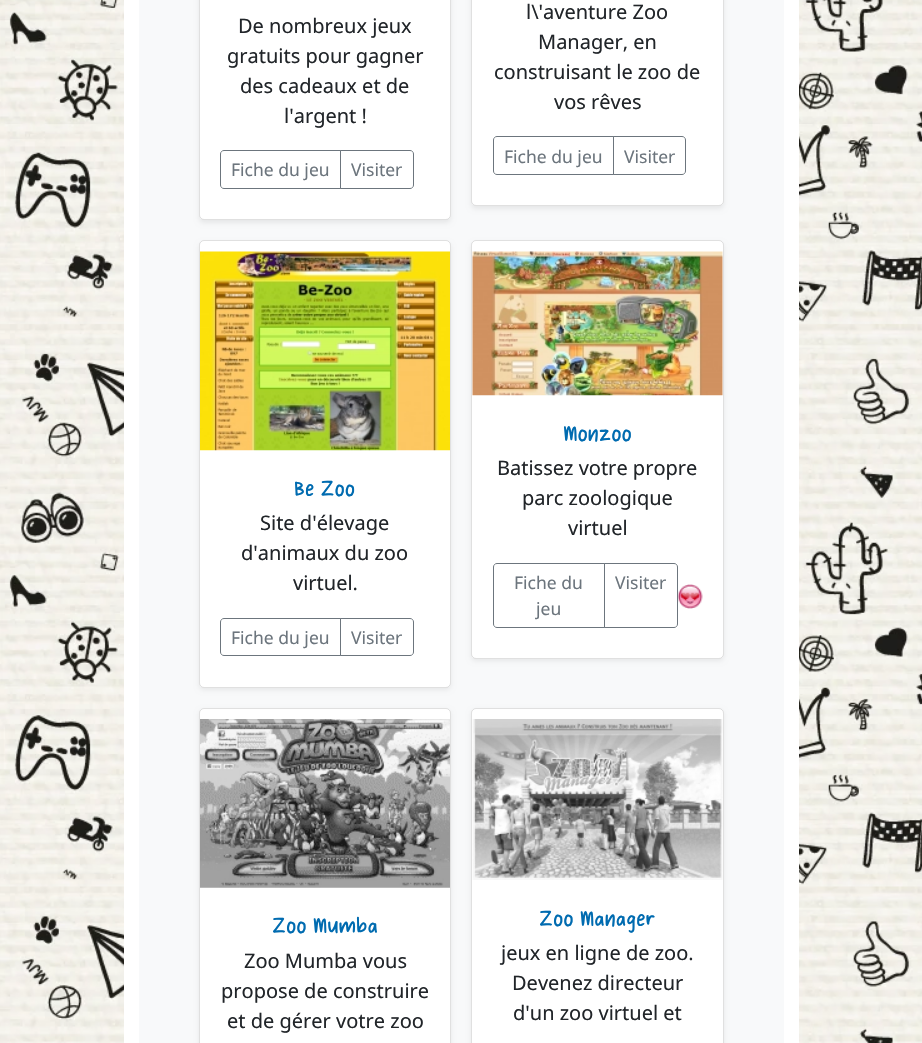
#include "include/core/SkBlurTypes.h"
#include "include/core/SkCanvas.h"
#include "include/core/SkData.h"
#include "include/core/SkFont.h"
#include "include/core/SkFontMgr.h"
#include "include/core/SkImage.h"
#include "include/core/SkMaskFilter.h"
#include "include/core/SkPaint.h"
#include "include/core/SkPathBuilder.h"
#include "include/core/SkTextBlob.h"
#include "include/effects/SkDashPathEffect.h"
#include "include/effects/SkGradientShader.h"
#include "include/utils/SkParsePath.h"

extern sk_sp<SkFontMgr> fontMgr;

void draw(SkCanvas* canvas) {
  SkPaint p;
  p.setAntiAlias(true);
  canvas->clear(SK_ColorWHITE);
  canvas->drawImageRect(SkImages::DeferredFromEncodedData(SkData::MakeFromFileName("images/1.png")), SkRect::MakeLTRB(0, 0, 922, 1043), SkSamplingOptions());
  p.setColor(SK_ColorWHITE);
  canvas->drawRect(SkRect::MakeLTRB(124, 0, 799, 1043), p);
  p.setColor(SkColorSetRGB(248, 249, 250));
  canvas->drawRect(SkRect::MakeLTRB(139, 0, 784, 1043), p);
  p.setColor(SkColorSetARGB(18, 0, 0, 0));
  p.setMaskFilter(SkMaskFilter::MakeBlur(kNormal_SkBlurStyle, 2.5f));
  canvas->drawRoundRect(SkRect::MakeLTRB(199, -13, 451, 223), 5, 5, p);
  p.setMaskFilter(nullptr);
  p.setColor(SK_ColorWHITE);
  canvas->drawRoundRect(SkRect::MakeLTRB(199, -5, 451, 220), 5, 5, p);
  p.setStyle(SkPaint::kStroke_Style);
  p.setStrokeWidth(1);
  p.setColor(SkColorSetARGB(31, 0, 0, 0));
  canvas->drawRoundRect(SkRect::MakeLTRB(199.5f, -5.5f, 450.5f, 219.5f), 4.5f, 4.5f, p);
  p.setColor(SkColorSetRGB(108, 117, 125));
  canvas->drawPath(SkPathBuilder().moveTo(224, 150.5f).lineTo(340.5f, 150.5f).lineTo(340.5f, 188.5f).lineTo(224, 188.5f).cubicTo(222, 188.5f, 220.5f, 187, 220.5f, 185).lineTo(220.5f, 154).cubicTo(220.5f, 152, 222, 150.5f, 224, 150.5f).close().detach(), p);
  canvas->drawPath(SkPathBuilder().moveTo(340.5f, 150.5f).lineTo(410, 150.5f).cubicTo(412, 150.5f, 413.5f, 152, 413.5f, 154).lineTo(413.5f, 185).cubicTo(413.5f, 187, 412, 188.5f, 410, 188.5f).lineTo(340.5f, 188.5f).close().detach(), p);
  p.setStyle(SkPaint::kFill_Style);
  p.setColor(SkColorSetARGB(18, 0, 0, 0));
  p.setMaskFilter(SkMaskFilter::MakeBlur(kNormal_SkBlurStyle, 2.5f));
  canvas->drawRoundRect(SkRect::MakeLTRB(471, -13, 724, 209), 5, 5, p);
  p.setMaskFilter(nullptr);
  p.setColor(SK_ColorWHITE);
  canvas->drawRoundRect(SkRect::MakeLTRB(471, -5, 724, 206), 5, 5, p);
  p.setStyle(SkPaint::kStroke_Style);
  p.setColor(SkColorSetARGB(31, 0, 0, 0));
  canvas->drawRoundRect(SkRect::MakeLTRB(471.5f, -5.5f, 723.5f, 205.5f), 4.5f, 4.5f, p);
  p.setColor(SkColorSetRGB(108, 117, 125));
  canvas->drawPath(SkPathBuilder().moveTo(497, 136.5f).lineTo(613.5f, 136.5f).lineTo(613.5f, 174.5f).lineTo(497, 174.5f).cubicTo(495, 174.5f, 493.5f, 173, 493.5f, 171).lineTo(493.5f, 140).cubicTo(493.5f, 138, 495, 136.5f, 497, 136.5f).close().detach(), p);
  canvas->drawPath(SkPathBuilder().moveTo(613.5f, 136.5f).lineTo(682, 136.5f).cubicTo(684, 136.5f, 685.5f, 138, 685.5f, 140).lineTo(685.5f, 171).cubicTo(685.5f, 173, 684, 174.5f, 682, 174.5f).lineTo(613.5f, 174.5f).close().detach(), p);
  p.setStyle(SkPaint::kFill_Style);
  p.setColor(SkColorSetARGB(18, 0, 0, 0));
  p.setMaskFilter(SkMaskFilter::MakeBlur(kNormal_SkBlurStyle, 2.5f));
  canvas->drawRoundRect(SkRect::MakeLTRB(199, 243, 451, 690), 5, 5, p);
  p.setMaskFilter(nullptr);
  p.setColor(SK_ColorWHITE);
  canvas->drawRoundRect(SkRect::MakeLTRB(199, 240, 451, 688), 5, 5, p);
  p.setStyle(SkPaint::kStroke_Style);
  p.setColor(SkColorSetARGB(31, 0, 0, 0));
  canvas->drawRoundRect(SkRect::MakeLTRB(199.5f, 240.5f, 450.5f, 687.5f), 4.5f, 4.5f, p);
  canvas->drawImageRect(SkImages::DeferredFromEncodedData(SkData::MakeFromFileName("images/2.png")), SkRect::MakeLTRB(200, 251, 450, 451), SkSamplingOptions());
  p.setColor(SkColorSetRGB(108, 117, 125));
  canvas->drawPath(SkPathBuilder().moveTo(224, 618.5f).lineTo(340.5f, 618.5f).lineTo(340.5f, 655.5f).lineTo(224, 655.5f).cubicTo(222, 655.5f, 220.5f, 654, 220.5f, 652).lineTo(220.5f, 622).cubicTo(220.5f, 620, 222, 618.5f, 224, 618.5f).close().detach(), p);
  canvas->drawPath(SkPathBuilder().moveTo(340.5f, 618.5f).lineTo(410, 618.5f).cubicTo(412, 618.5f, 413.5f, 620, 413.5f, 622).lineTo(413.5f, 652).cubicTo(413.5f, 654, 412, 655.5f, 410, 655.5f).lineTo(340.5f, 655.5f).close().detach(), p);
  p.setStyle(SkPaint::kFill_Style);
  p.setColor(SkColorSetARGB(18, 0, 0, 0));
  p.setMaskFilter(SkMaskFilter::MakeBlur(kNormal_SkBlurStyle, 2.5f));
  canvas->drawRoundRect(SkRect::MakeLTRB(471, 243, 724, 661), 5, 5, p);
  p.setMaskFilter(nullptr);
  p.setColor(SK_ColorWHITE);
  canvas->drawRoundRect(SkRect::MakeLTRB(471, 240, 724, 659), 5, 5, p);
  p.setStyle(SkPaint::kStroke_Style);
  p.setColor(SkColorSetARGB(31, 0, 0, 0));
  canvas->drawRoundRect(SkRect::MakeLTRB(471.5f, 240.5f, 723.5f, 658.5f), 4.5f, 4.5f, p);
  canvas->drawImageRect(SkImages::DeferredFromEncodedData(SkData::MakeFromFileName("images/3.png")), SkRect::MakeLTRB(472, 251, 723, 396), SkSamplingOptions());
  p.setColor(SkColorSetRGB(108, 117, 125));
  canvas->drawPath(SkPathBuilder().moveTo(497, 563.5f).lineTo(604.5f, 563.5f).lineTo(604.5f, 627.5f).lineTo(497, 627.5f).cubicTo(495, 627.5f, 493.5f, 626, 493.5f, 624).lineTo(493.5f, 567).cubicTo(493.5f, 565, 495, 563.5f, 497, 563.5f).close().detach(), p);
  canvas->drawPath(SkPathBuilder().moveTo(604.5f, 563.5f).lineTo(674, 563.5f).cubicTo(676, 563.5f, 677.5f, 565, 677.5f, 567).lineTo(677.5f, 624).cubicTo(677.5f, 626, 676, 627.5f, 674, 627.5f).lineTo(604.5f, 627.5f).close().detach(), p);
  canvas->drawImageRect(SkImages::DeferredFromEncodedData(SkData::MakeFromFileName("images/4.png")), SkRect::MakeLTRB(678, 584, 703, 609), SkSamplingOptions());
  p.setStyle(SkPaint::kFill_Style);
  p.setColor(SkColorSetARGB(18, 0, 0, 0));
  p.setMaskFilter(SkMaskFilter::MakeBlur(kNormal_SkBlurStyle, 2.5f));
  canvas->drawRoundRect(SkRect::MakeLTRB(199, 710, 451, 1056), 5, 5, p);
  p.setMaskFilter(nullptr);
  p.setColor(SK_ColorWHITE);
  canvas->drawRoundRect(SkRect::MakeLTRB(199, 708, 451, 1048), 5, 5, p);
  p.setStyle(SkPaint::kStroke_Style);
  p.setColor(SkColorSetARGB(31, 0, 0, 0));
  canvas->drawRoundRect(SkRect::MakeLTRB(199.5f, 708.5f, 450.5f, 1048.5f), 4.5f, 4.5f, p);
  canvas->drawImageRect(SkImages::DeferredFromEncodedData(SkData::MakeFromFileName("images/5.png")), SkRect::MakeLTRB(200, 719, 450, 888), SkSamplingOptions());
  p.setStyle(SkPaint::kFill_Style);
  p.setColor(SkColorSetARGB(18, 0, 0, 0));
  p.setMaskFilter(SkMaskFilter::MakeBlur(kNormal_SkBlurStyle, 2.5f));
  canvas->drawRoundRect(SkRect::MakeLTRB(471, 710, 724, 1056), 5, 5, p);
  p.setMaskFilter(nullptr);
  p.setColor(SK_ColorWHITE);
  canvas->drawRoundRect(SkRect::MakeLTRB(471, 708, 724, 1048), 5, 5, p);
  p.setStyle(SkPaint::kStroke_Style);
  p.setColor(SkColorSetARGB(31, 0, 0, 0));
  canvas->drawRoundRect(SkRect::MakeLTRB(471.5f, 708.5f, 723.5f, 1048.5f), 4.5f, 4.5f, p);
  canvas->drawImageRect(SkImages::DeferredFromEncodedData(SkData::MakeFromFileName("images/6.png")), SkRect::MakeLTRB(472, 719, 723, 880), SkSamplingOptions());
  SkFont font1(fontMgr->matchFamilyStyle("Noto Sans", SkFontStyle::Normal()), 20);
  font1.setSubpixel(true);
  p.setStyle(SkPaint::kFill_Style);
  p.setColor(SkColorSetRGB(33, 37, 41));
  canvas->drawString("De nombreux jeux", 238, 33, font1, p);
  canvas->drawString("gratuits pour gagner", 227, 63, font1, p);
  canvas->drawString("des cadeaux et de", 240, 93, font1, p);
  canvas->drawString("l'argent !", 284, 123, font1, p);
  SkFont font2(fontMgr->matchFamilyStyle("Noto Sans", SkFontStyle::Normal()), 17.5f);
  font2.setSubpixel(true);
  p.setColor(SkColorSetRGB(108, 117, 125));
  canvas->drawString("Fiche du jeu", 231, 176, font2, p);
  canvas->drawString("Visiter", 351, 176, font2, p);
  p.setColor(SkColorSetRGB(33, 37, 41));
  canvas->drawString("l\\'aventure Zoo", 526, 19, font1, p);
  canvas->drawString("Manager, en", 538, 49, font1, p);
  canvas->drawString("construisant le zoo de", 494, 79, font1, p);
  canvas->drawString("vos rêves", 554, 109, font1, p);
  p.setColor(SkColorSetRGB(108, 117, 125));
  canvas->drawString("Fiche du jeu", 504, 163, font2, p);
  canvas->drawString("Visiter", 624, 163, font2, p);
  SkFont font3(fontMgr->matchFamilyStyle("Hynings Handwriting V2", SkFontStyle::Normal()), 25);
  font3.setSubpixel(true);
  p.setColor(SkColorSetRGB(0, 107, 176));
  canvas->drawString("Be Zoo", 294, 498, font3, p);
  p.setColor(SkColorSetRGB(33, 37, 41));
  canvas->drawString("Site d'élevage", 260, 530, font1, p);
  canvas->drawString("d'animaux du zoo", 241, 560, font1, p);
  canvas->drawString("virtuel.", 293, 590, font1, p);
  p.setColor(SkColorSetRGB(108, 117, 125));
  canvas->drawString("Fiche du jeu", 231, 644, font2, p);
  canvas->drawString("Visiter", 351, 644, font2, p);
  p.setColor(SkColorSetRGB(0, 107, 176));
  canvas->drawString("Monzoo", 563, 443, font3, p);
  p.setColor(SkColorSetRGB(33, 37, 41));
  canvas->drawString("Batissez votre propre", 497, 475, font1, p);
  canvas->drawString("parc zoologique", 522, 505, font1, p);
  canvas->drawString("virtuel", 568, 535, font1, p);
  p.setColor(SkColorSetRGB(108, 117, 125));
  canvas->drawString("Fiche du", 514, 589, font2, p);
  canvas->drawString("jeu", 536, 615, font2, p);
  canvas->drawString("Visiter", 615, 589, font2, p);
  p.setColor(SkColorSetRGB(0, 107, 176));
  canvas->drawString("Zoo Mumba", 272, 935, font3, p);
  p.setColor(SkColorSetRGB(33, 37, 41));
  canvas->drawString("Zoo Mumba vous", 244, 968, font1, p);
  canvas->drawString("propose de construire", 221, 998, font1, p);
  canvas->drawString("et de gérer votre zoo", 227, 1028, font1, p);
  p.setColor(SkColorSetRGB(0, 107, 176));
  canvas->drawString("Zoo Manager", 539, 928, font3, p);
  p.setColor(SkColorSetRGB(33, 37, 41));
  canvas->drawString("jeux en ligne de zoo.", 501, 960, font1, p);
  canvas->drawString("Devenez directeur", 512, 990, font1, p);
  canvas->drawString("d'un zoo virtuel et", 513, 1020, font1, p);
}
